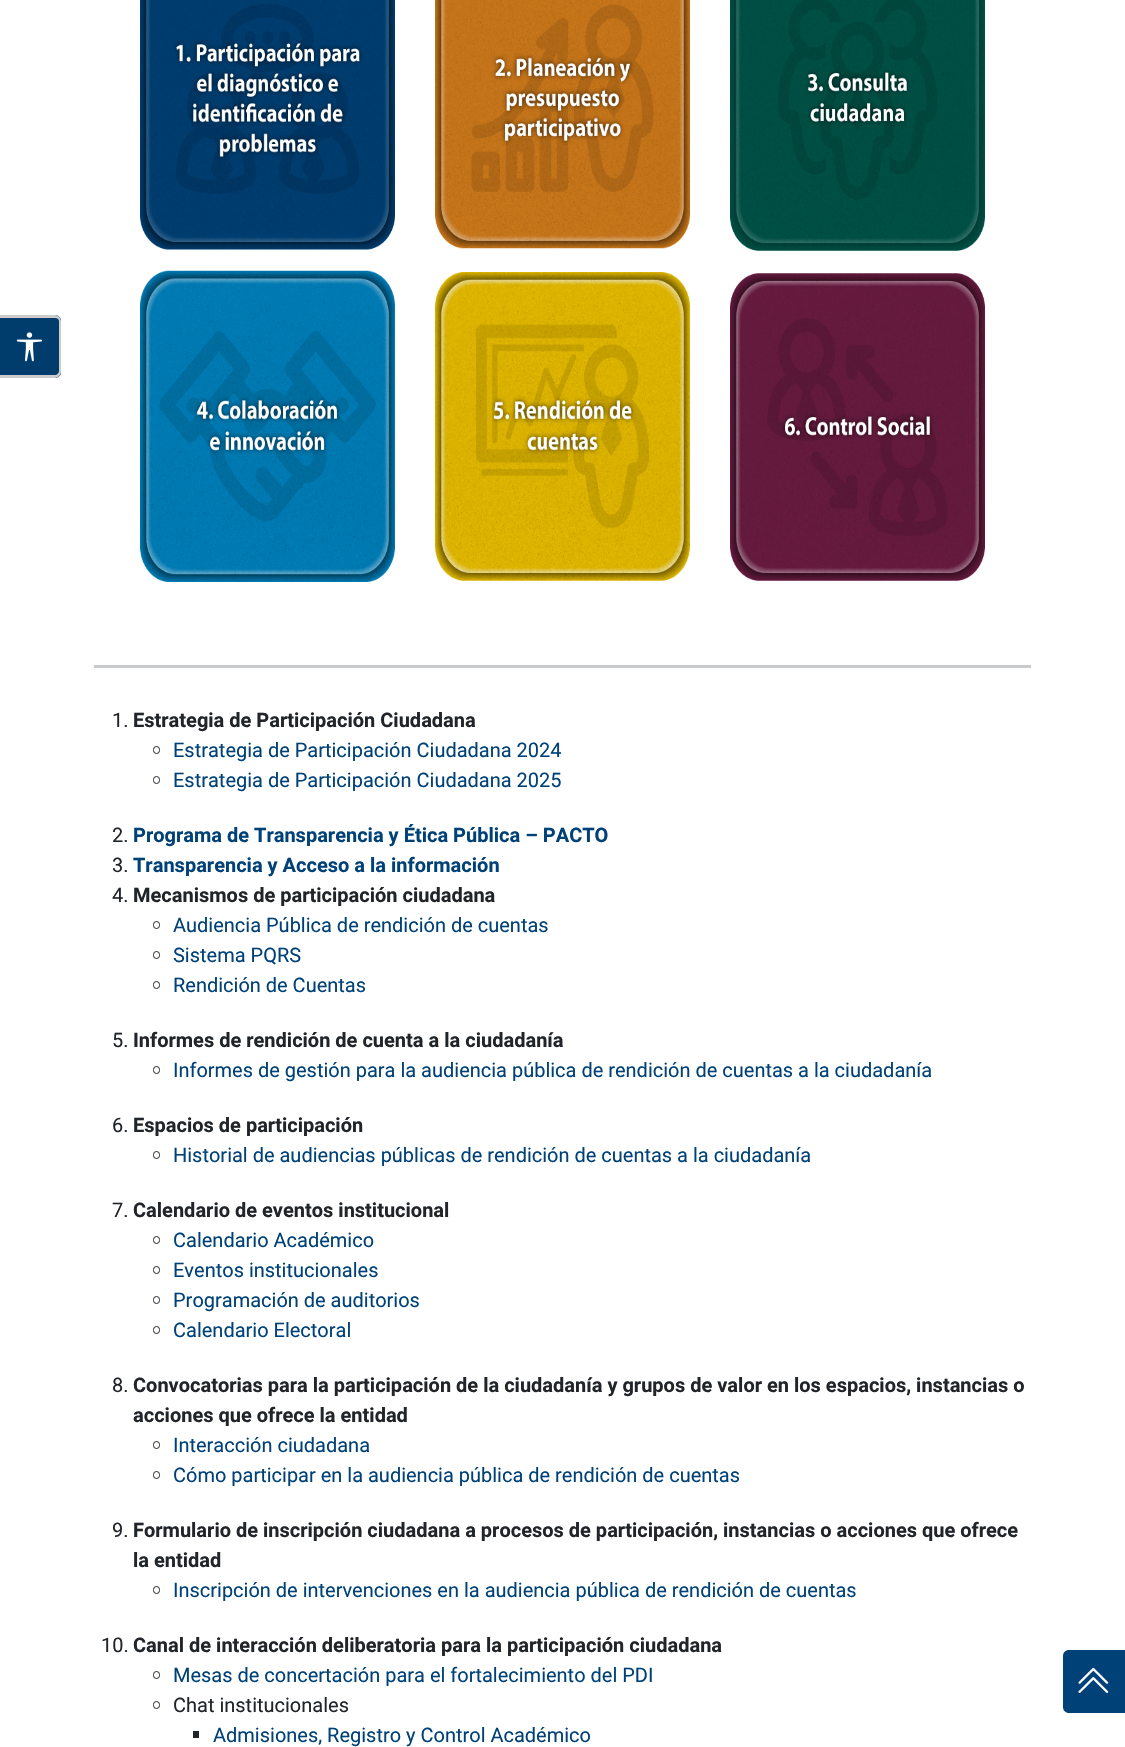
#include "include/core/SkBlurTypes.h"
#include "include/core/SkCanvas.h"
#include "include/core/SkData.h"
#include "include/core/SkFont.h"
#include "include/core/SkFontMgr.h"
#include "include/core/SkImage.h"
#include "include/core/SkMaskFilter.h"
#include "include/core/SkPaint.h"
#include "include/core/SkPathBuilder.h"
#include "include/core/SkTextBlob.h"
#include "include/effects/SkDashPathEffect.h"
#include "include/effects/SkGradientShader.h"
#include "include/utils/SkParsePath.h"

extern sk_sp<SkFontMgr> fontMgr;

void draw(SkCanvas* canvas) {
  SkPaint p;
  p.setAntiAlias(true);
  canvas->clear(SK_ColorWHITE);
  p.setColor(SkColorSetRGB(0, 61, 109));
  canvas->drawPath(SkPathBuilder().moveTo(0, 315).lineTo(55, 315).cubicTo(58.5f, 315, 61, 317.5f, 61, 321).lineTo(61, 372).cubicTo(61, 375.5f, 58.5f, 378, 55, 378).lineTo(0, 378).close().detach(), p);
  p.setColor(SkColorSetRGB(204, 204, 204));
  canvas->drawPath(SkPathBuilder(SkPathFillType::kEvenOdd).moveTo(0, 315).lineTo(55, 315).cubicTo(58, 315, 61, 318, 61, 321).lineTo(61, 371).cubicTo(61, 375, 58, 378, 55, 378).lineTo(0, 378).close().moveTo(0, 318).lineTo(55, 318).cubicTo(57, 318, 59, 319, 59, 321).lineTo(59, 371).cubicTo(59, 373, 57, 375, 55, 375).lineTo(0, 375).close().detach(), p);
  canvas->drawImageRect(SkImages::DeferredFromEncodedData(SkData::MakeFromFileName("images/1.png")), SkRect::MakeLTRB(16, 332, 43, 362), SkSamplingOptions());
  canvas->drawImageRect(SkImages::DeferredFromEncodedData(SkData::MakeFromFileName("images/2.png")), SkRect::MakeLTRB(140, 0, 395, 250), SkSamplingOptions());
  canvas->drawImageRect(SkImages::DeferredFromEncodedData(SkData::MakeFromFileName("images/3.png")), SkRect::MakeLTRB(435, 0, 690, 249), SkSamplingOptions());
  canvas->drawImageRect(SkImages::DeferredFromEncodedData(SkData::MakeFromFileName("images/4.png")), SkRect::MakeLTRB(730, 0, 985, 251), SkSamplingOptions());
  canvas->drawImageRect(SkImages::DeferredFromEncodedData(SkData::MakeFromFileName("images/5.png")), SkRect::MakeLTRB(140, 270, 395, 582), SkSamplingOptions());
  canvas->drawImageRect(SkImages::DeferredFromEncodedData(SkData::MakeFromFileName("images/6.png")), SkRect::MakeLTRB(435, 272, 690, 581), SkSamplingOptions());
  canvas->drawImageRect(SkImages::DeferredFromEncodedData(SkData::MakeFromFileName("images/7.png")), SkRect::MakeLTRB(730, 273, 985, 581), SkSamplingOptions());
  p.setColor(SkColorSetRGB(200, 201, 202));
  canvas->drawRect(SkRect::MakeLTRB(94, 665, 1031, 668), p);
  p.setStyle(SkPaint::kStroke_Style);
  p.setStrokeWidth(1);
  p.setColor(SkColorSetRGB(33, 37, 41));
  canvas->drawRoundRect(SkRect::MakeLTRB(153.5f, 746.5f, 159.5f, 753.5f), 3, 3, p);
  canvas->drawRoundRect(SkRect::MakeLTRB(153.5f, 776.5f, 159.5f, 783.5f), 3, 3, p);
  canvas->drawRoundRect(SkRect::MakeLTRB(153.5f, 921.5f, 159.5f, 928.5f), 3, 3, p);
  canvas->drawRoundRect(SkRect::MakeLTRB(153.5f, 951.5f, 159.5f, 958.5f), 3, 3, p);
  canvas->drawRoundRect(SkRect::MakeLTRB(153.5f, 981.5f, 159.5f, 988.5f), 3, 3, p);
  canvas->drawRoundRect(SkRect::MakeLTRB(153.5f, 1066.5f, 159.5f, 1073.5f), 3, 3, p);
  canvas->drawRoundRect(SkRect::MakeLTRB(153.5f, 1151.5f, 159.5f, 1158.5f), 3, 3, p);
  canvas->drawRoundRect(SkRect::MakeLTRB(153.5f, 1236.5f, 159.5f, 1243.5f), 3, 3, p);
  canvas->drawRoundRect(SkRect::MakeLTRB(153.5f, 1266.5f, 159.5f, 1273.5f), 3, 3, p);
  canvas->drawRoundRect(SkRect::MakeLTRB(153.5f, 1296.5f, 159.5f, 1303.5f), 3, 3, p);
  canvas->drawRoundRect(SkRect::MakeLTRB(153.5f, 1326.5f, 159.5f, 1333.5f), 3, 3, p);
  canvas->drawRoundRect(SkRect::MakeLTRB(153.5f, 1441.5f, 159.5f, 1448.5f), 3, 3, p);
  canvas->drawRoundRect(SkRect::MakeLTRB(153.5f, 1471.5f, 159.5f, 1478.5f), 3, 3, p);
  canvas->drawRoundRect(SkRect::MakeLTRB(153.5f, 1586.5f, 159.5f, 1593.5f), 3, 3, p);
  canvas->drawRoundRect(SkRect::MakeLTRB(153.5f, 1671.5f, 159.5f, 1678.5f), 3, 3, p);
  canvas->drawRoundRect(SkRect::MakeLTRB(153.5f, 1701.5f, 159.5f, 1708.5f), 3, 3, p);
  p.setStyle(SkPaint::kFill_Style);
  canvas->drawRect(SkRect::MakeLTRB(193, 1731, 199, 1738), p);
  p.setColor(SkColorSetRGB(0, 66, 120));
  canvas->drawPath(SkPathBuilder().moveTo(1069, 1650).lineTo(1125, 1650).lineTo(1125, 1713).lineTo(1069, 1713).cubicTo(1065.5f, 1713, 1063, 1710.5f, 1063, 1707).lineTo(1063, 1656).cubicTo(1063, 1652.5f, 1065.5f, 1650, 1069, 1650).close().detach(), p);
  canvas->drawImageRect(SkImages::DeferredFromEncodedData(SkData::MakeFromFileName("images/8.png")), SkRect::MakeLTRB(1078, 1667, 1109, 1693), SkSamplingOptions());
  SkFont font1(fontMgr->matchFamilyStyle("Roboto", SkFontStyle::Normal()), 20);
  font1.setSubpixel(true);
  p.setColor(SkColorSetRGB(33, 37, 41));
  canvas->drawString("1.", 112, 727, font1, p);
  SkFont font2(fontMgr->matchFamilyStyle("Roboto", SkFontStyle::Bold()), 20);
  font2.setSubpixel(true);
  canvas->drawString("Estrategia de Participación Ciudadana", 133, 727, font2, p);
  p.setColor(SkColorSetRGB(0, 66, 120));
  canvas->drawString("Estrategia de Participación Ciudadana 2024", 173, 757, font1, p);
  canvas->drawString("Estrategia de Participación Ciudadana 2025", 173, 787, font1, p);
  p.setColor(SkColorSetRGB(33, 37, 41));
  canvas->drawString("2.", 112, 842, font1, p);
  p.setColor(SkColorSetRGB(0, 66, 120));
  canvas->drawString("Programa de Transparencia y Ética Pública – PACTO", 133, 842, font2, p);
  p.setColor(SkColorSetRGB(33, 37, 41));
  canvas->drawString("3.", 112, 872, font1, p);
  p.setColor(SkColorSetRGB(0, 66, 120));
  canvas->drawString("Transparencia y Acceso a la información", 133, 872, font2, p);
  p.setColor(SkColorSetRGB(33, 37, 41));
  canvas->drawString("4.", 112, 902, font1, p);
  canvas->drawString("Mecanismos de participación ciudadana", 133, 902, font2, p);
  p.setColor(SkColorSetRGB(0, 66, 120));
  canvas->drawString("Audiencia Pública de rendición de cuentas", 173, 932, font1, p);
  canvas->drawString("Sistema PQRS", 173, 962, font1, p);
  canvas->drawString("Rendición de Cuentas", 173, 992, font1, p);
  p.setColor(SkColorSetRGB(33, 37, 41));
  canvas->drawString("5.", 112, 1047, font1, p);
  canvas->drawString("Informes de rendición de cuenta a la ciudadanía", 133, 1047, font2, p);
  p.setColor(SkColorSetRGB(0, 66, 120));
  canvas->drawString("Informes de gestión para la audiencia pública de rendición de cuentas a la ciudadanía", 173, 1077, font1, p);
  p.setColor(SkColorSetRGB(33, 37, 41));
  canvas->drawString("6.", 112, 1132, font1, p);
  canvas->drawString("Espacios de participación", 133, 1132, font2, p);
  p.setColor(SkColorSetRGB(0, 66, 120));
  canvas->drawString("Historial de audiencias públicas de rendición de cuentas a la ciudadanía", 173, 1162, font1, p);
  p.setColor(SkColorSetRGB(33, 37, 41));
  canvas->drawString("7.", 112, 1217, font1, p);
  canvas->drawString("Calendario de eventos institucional", 133, 1217, font2, p);
  p.setColor(SkColorSetRGB(0, 66, 120));
  canvas->drawString("Calendario Académico", 173, 1247, font1, p);
  canvas->drawString("Eventos institucionales", 173, 1277, font1, p);
  canvas->drawString("Programación de auditorios", 173, 1307, font1, p);
  canvas->drawString("Calendario Electoral", 173, 1337, font1, p);
  p.setColor(SkColorSetRGB(33, 37, 41));
  canvas->drawString("8.", 112, 1392, font1, p);
  canvas->drawString("Convocatorias para la participación de la ciudadanía y grupos de valor en los espacios, instancias o", 133, 1392, font2, p);
  canvas->drawString("acciones que ofrece la entidad", 133, 1422, font2, p);
  p.setColor(SkColorSetRGB(0, 66, 120));
  canvas->drawString("Interacción ciudadana", 173, 1452, font1, p);
  canvas->drawString("Cómo participar en la audiencia pública de rendición de cuentas", 173, 1482, font1, p);
  p.setColor(SkColorSetRGB(33, 37, 41));
  canvas->drawString("9.", 112, 1537, font1, p);
  canvas->drawString("Formulario de inscripción ciudadana a procesos de participación, instancias o acciones que ofrece", 133, 1537, font2, p);
  canvas->drawString("la entidad", 133, 1567, font2, p);
  p.setColor(SkColorSetRGB(0, 66, 120));
  canvas->drawString("Inscripción de intervenciones en la audiencia pública de rendición de cuentas", 173, 1597, font1, p);
  p.setColor(SkColorSetRGB(33, 37, 41));
  canvas->drawString("10.", 101, 1652, font1, p);
  canvas->drawString("Canal de interacción deliberatoria para la participación ciudadana", 133, 1652, font2, p);
  p.setColor(SkColorSetRGB(0, 66, 120));
  canvas->drawString("Mesas de concertación para el fortalecimiento del PDI", 173, 1682, font1, p);
  p.setColor(SkColorSetRGB(33, 37, 41));
  canvas->drawString("Chat institucionales", 173, 1712, font1, p);
  p.setColor(SkColorSetRGB(0, 66, 120));
  canvas->drawString("Admisiones, Registro y Control Académico", 213, 1742, font1, p);
}
